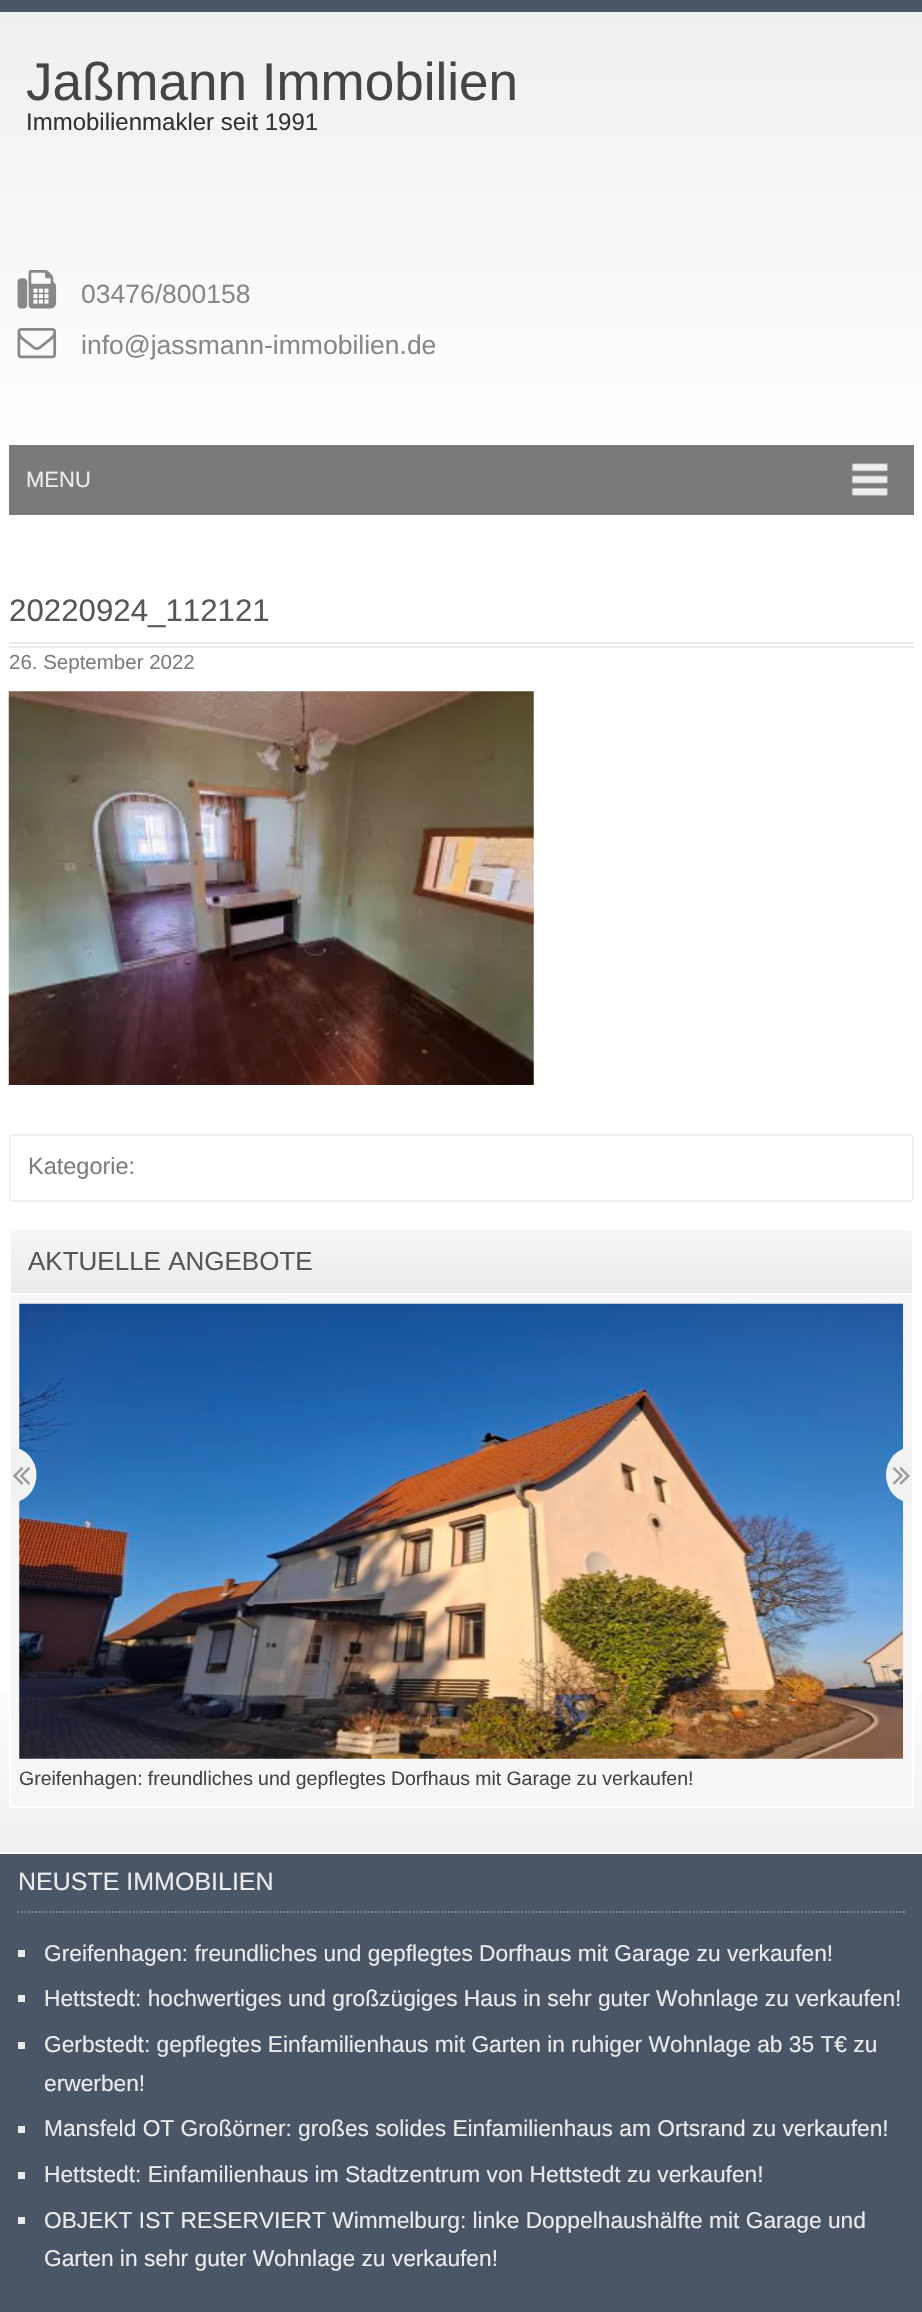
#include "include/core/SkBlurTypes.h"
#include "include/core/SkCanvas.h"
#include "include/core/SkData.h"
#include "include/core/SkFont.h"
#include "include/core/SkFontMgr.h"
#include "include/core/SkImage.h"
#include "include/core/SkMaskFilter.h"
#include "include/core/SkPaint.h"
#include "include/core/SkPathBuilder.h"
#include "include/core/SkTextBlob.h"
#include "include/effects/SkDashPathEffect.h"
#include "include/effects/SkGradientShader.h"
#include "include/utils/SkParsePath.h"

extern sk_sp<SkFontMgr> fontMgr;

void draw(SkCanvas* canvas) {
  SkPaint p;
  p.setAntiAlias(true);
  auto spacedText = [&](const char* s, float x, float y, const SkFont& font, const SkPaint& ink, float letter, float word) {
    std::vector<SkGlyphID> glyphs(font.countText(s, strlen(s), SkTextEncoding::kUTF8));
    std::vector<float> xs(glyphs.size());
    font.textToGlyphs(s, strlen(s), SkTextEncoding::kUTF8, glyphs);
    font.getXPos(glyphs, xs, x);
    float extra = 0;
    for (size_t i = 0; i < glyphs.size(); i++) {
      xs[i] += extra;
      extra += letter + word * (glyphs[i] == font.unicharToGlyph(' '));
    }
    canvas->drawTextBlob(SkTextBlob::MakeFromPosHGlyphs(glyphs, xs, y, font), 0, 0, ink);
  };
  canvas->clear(SkColorSetRGB(74, 86, 102));
  {
    const SkColor colors[] = {SK_ColorWHITE, SkColorSetRGB(239, 239, 239), SK_ColorWHITE};
    const float stops[] = {0, 0, 0.24f};
    const SkPoint ends[] = {{461, 12}, {461, 1852}};
    p.setShader(SkGradientShader::MakeLinear(ends, colors, stops, 3, SkTileMode::kClamp));
    p.setAlpha(255);
  }
  canvas->drawRect(SkRect::MakeLTRB(0, 12, 922, 1852), p);
  {
    const SkColor colors[] = {SkColorSetARGB(0, 239, 239, 239), SkColorSetARGB(250, 239, 239, 239)};
    const float stops[] = {0.9f, 1};
    const SkPoint ends[] = {{461, 12}, {461, 1852}};
    p.setShader(SkGradientShader::MakeLinear(ends, colors, stops, 2, SkTileMode::kClamp));
    p.setAlpha(255);
  }
  canvas->drawRect(SkRect::MakeLTRB(0, 1693, 922, 1852), p);
  canvas->drawImageRect(SkImages::DeferredFromEncodedData(SkData::MakeFromFileName("images/1.png")), SkRect::MakeLTRB(17, 270, 57, 309), SkSamplingOptions());
  canvas->drawImageRect(SkImages::DeferredFromEncodedData(SkData::MakeFromFileName("images/2.png")), SkRect::MakeLTRB(17, 328, 57, 359), SkSamplingOptions());
  p.setShader(nullptr);
  p.setColor(SkColorSetRGB(122, 122, 122));
  canvas->drawRect(SkRect::MakeLTRB(9, 445, 914, 515), p);
  canvas->drawImageRect(SkImages::DeferredFromEncodedData(SkData::MakeFromFileName("images/3.png")), SkRect::MakeLTRB(851, 463, 888, 496), SkSamplingOptions());
  p.setColor(SkColorSetRGB(235, 235, 235));
  canvas->drawRect(SkRect::MakeLTRB(9, 642, 914, 644), p);
  canvas->drawRect(SkRect::MakeLTRB(9, 646, 914, 648), p);
  canvas->drawImageRect(SkImages::DeferredFromEncodedData(SkData::MakeFromFileName("images/4.png")), SkRect::MakeLTRB(8, 691, 534, 1085), SkSamplingOptions());
  p.setStyle(SkPaint::kStroke_Style);
  p.setStrokeWidth(2);
  p.setColor(SkColorSetRGB(241, 241, 241));
  canvas->drawRoundRect(SkRect::MakeLTRB(10, 1135, 913, 1201), 3, 3, p);
  p.setStyle(SkPaint::kFill_Style);
  p.setColor(SkColorSetRGB(246, 246, 246));
  canvas->drawRect(SkRect::MakeLTRB(10, 1230, 913, 1807), p);
  p.setStyle(SkPaint::kStroke_Style);
  p.setColor(SK_ColorWHITE);
  canvas->drawRect(SkRect::MakeLTRB(10, 1230, 913, 1807), p);
  p.setStyle(SkPaint::kFill_Style);
  {
    const SkColor colors[] = {SkColorSetRGB(246, 246, 246), SkColorSetRGB(235, 235, 235)};
    const float stops[] = {0, 1};
    const SkPoint ends[] = {{461, 1230}, {461, 1293}};
    p.setShader(SkGradientShader::MakeLinear(ends, colors, stops, 2, SkTileMode::kClamp));
    p.setAlpha(255);
  }
  canvas->drawPath(SkPathBuilder().moveTo(20, 1230).lineTo(903, 1230).cubicTo(908, 1230, 912, 1234, 912, 1239).lineTo(912, 1293).lineTo(11, 1293).lineTo(11, 1239).cubicTo(11, 1234, 15, 1230, 20, 1230).close().detach(), p);
  p.setShader(nullptr);
  p.setColor(SK_ColorWHITE);
  canvas->drawRect(SkRect::MakeLTRB(11, 1293, 912, 1295), p);
  canvas->drawImageRect(SkImages::DeferredFromEncodedData(SkData::MakeFromFileName("images/7.png")), SkRect::MakeLTRB(19, 1303, 903, 1759), SkSamplingOptions());
  canvas->save();
  canvas->clipRect(SkRect::MakeLTRB(11, 1295, 912, 1806));
  p.setColor(SkColorSetRGB(242, 242, 242));
  canvas->drawOval(SkRect::MakeLTRB(-15.5f, 1447, 36.5f, 1503), p);
  canvas->restore();
  canvas->drawImageRect(SkImages::DeferredFromEncodedData(SkData::MakeFromFileName("images/5.png")), SkRect::MakeLTRB(13, 1467, 30, 1485), SkSamplingOptions());
  canvas->save();
  canvas->clipRect(SkRect::MakeLTRB(11, 1295, 912, 1806));
  canvas->drawOval(SkRect::MakeLTRB(886, 1447, 938, 1503), p);
  canvas->restore();
  canvas->drawImageRect(SkImages::DeferredFromEncodedData(SkData::MakeFromFileName("images/6.png")), SkRect::MakeLTRB(892, 1467, 910, 1485), SkSamplingOptions());
  p.setColor(SK_ColorWHITE);
  canvas->drawRect(SkRect::MakeLTRB(0, 1852, 922, 1854), p);
  p.setStyle(SkPaint::kStroke_Style);
  p.setStrokeWidth(1.8f);
  p.setColor(SkColorSetRGB(128, 137, 148));
  p.setPathEffect(SkDashPathEffect::Make({{1.75f, 1.75f}}, 0));
  canvas->drawPath(SkPathBuilder().moveTo(17.5f, 1912).lineTo(905, 1912).detach(), p);
  p.setPathEffect(nullptr);
  p.setStyle(SkPaint::kFill_Style);
  p.setColor(SkColorSetRGB(235, 235, 235));
  canvas->drawRect(SkRect::MakeLTRB(18, 1950, 25, 1957), p);
  canvas->drawRect(SkRect::MakeLTRB(18, 1995, 25, 2002), p);
  canvas->drawRect(SkRect::MakeLTRB(18, 2042, 25, 2049), p);
  canvas->drawRect(SkRect::MakeLTRB(18, 2126, 25, 2133), p);
  canvas->drawRect(SkRect::MakeLTRB(18, 2172, 25, 2179), p);
  canvas->drawRect(SkRect::MakeLTRB(18, 2217, 25, 2224), p);
  SkFont font1(fontMgr->matchFamilyStyle("Liberation Sans", SkFontStyle::Normal()), 53);
  font1.setSubpixel(true);
  p.setColor(SkColorSetRGB(69, 69, 69));
  canvas->drawString("Jaßmann Immobilien", 26, 100, font1, p);
  SkFont font2(fontMgr->matchFamilyStyle("Liberation Sans", SkFontStyle::Normal()), 24);
  font2.setSubpixel(true);
  p.setColor(SkColorSetRGB(51, 51, 51));
  canvas->drawString("Immobilienmakler seit 1991", 26, 130, font2, p);
  SkFont font3(fontMgr->matchFamilyStyle("Liberation Sans", SkFontStyle::Normal()), 26.5f);
  font3.setSubpixel(true);
  p.setColor(SkColorSetRGB(136, 136, 136));
  canvas->drawString("03476/800158", 81, 303, font3, p);
  canvas->drawString("info@jassmann-immobilien.de", 81, 354, font3, p);
  SkFont font4(fontMgr->matchFamilyStyle("Liberation Sans", SkFontStyle::Normal()), 22);
  font4.setSubpixel(true);
  p.setColor(SkColorSetRGB(235, 235, 235));
  canvas->drawString("MENU", 26, 487, font4, p);
  SkFont font5(fontMgr->matchFamilyStyle("Liberation Sans", SkFontStyle::Normal()), 31.25f);
  font5.setSubpixel(true);
  p.setColor(SkColorSetRGB(87, 87, 87));
  canvas->drawString("20220924_112121", 9, 621, font5, p);
  SkFont font6(fontMgr->matchFamilyStyle("Liberation Sans", SkFontStyle::Normal()), 20.5f);
  font6.setSubpixel(true);
  p.setColor(SkColorSetRGB(125, 125, 125));
  canvas->drawString("26. September 2022", 9, 669, font6, p);
  SkFont font7(fontMgr->matchFamilyStyle("Liberation Sans", SkFontStyle::Normal()), 23.5f);
  font7.setSubpixel(true);
  canvas->drawString("Kategorie:", 28, 1174, font7, p);
  SkFont font8(fontMgr->matchFamilyStyle("Liberation Sans", SkFontStyle::Normal()), 26);
  font8.setSubpixel(true);
  p.setColor(SkColorSetRGB(87, 87, 87));
  canvas->drawString("AKTUELLE ANGEBOTE", 28, 1270, font8, p);
  SkFont font9(fontMgr->matchFamilyStyle("Liberation Sans", SkFontStyle::Normal()), 19.5f);
  font9.setSubpixel(true);
  p.setColor(SkColorSetRGB(69, 69, 69));
  spacedText("Greifenhagen: freundliches und gepflegtes Dorfhaus mit Garage zu verkaufen!", 19, 1785, font9, p, 0, -0.25f);
  SkFont font10(fontMgr->matchFamilyStyle("Liberation Sans", SkFontStyle::Normal()), 25);
  font10.setSubpixel(true);
  p.setColor(SkColorSetRGB(235, 235, 235));
  canvas->drawString("NEUSTE IMMOBILIEN", 18, 1890, font10, p);
  SkFont font11(fontMgr->matchFamilyStyle("Liberation Sans", SkFontStyle::Normal()), 22.75f);
  font11.setSubpixel(true);
  canvas->drawString("Greifenhagen: freundliches und gepflegtes Dorfhaus mit Garage zu verkaufen!", 44, 1961, font11, p);
  canvas->drawString("Hettstedt: hochwertiges und großzügiges Haus in sehr guter Wohnlage zu verkaufen!", 44, 2006, font11, p);
  canvas->drawString("Gerbstedt: gepflegtes Einfamilienhaus mit Garten in ruhiger Wohnlage ab 35 T€ zu", 44, 2052, font11, p);
  canvas->drawString("erwerben!", 44, 2091, font11, p);
  canvas->drawString("Mansfeld OT Großörner: großes solides Einfamilienhaus am Ortsrand zu verkaufen!", 44, 2136, font11, p);
  canvas->drawString("Hettstedt: Einfamilienhaus im Stadtzentrum von Hettstedt zu verkaufen!", 44, 2182, font11, p);
  canvas->drawString("OBJEKT IST RESERVIERT Wimmelburg: linke Doppelhaushälfte mit Garage und", 44, 2228, font11, p);
  canvas->drawString("Garten in sehr guter Wohnlage zu verkaufen!", 44, 2266, font11, p);
}
